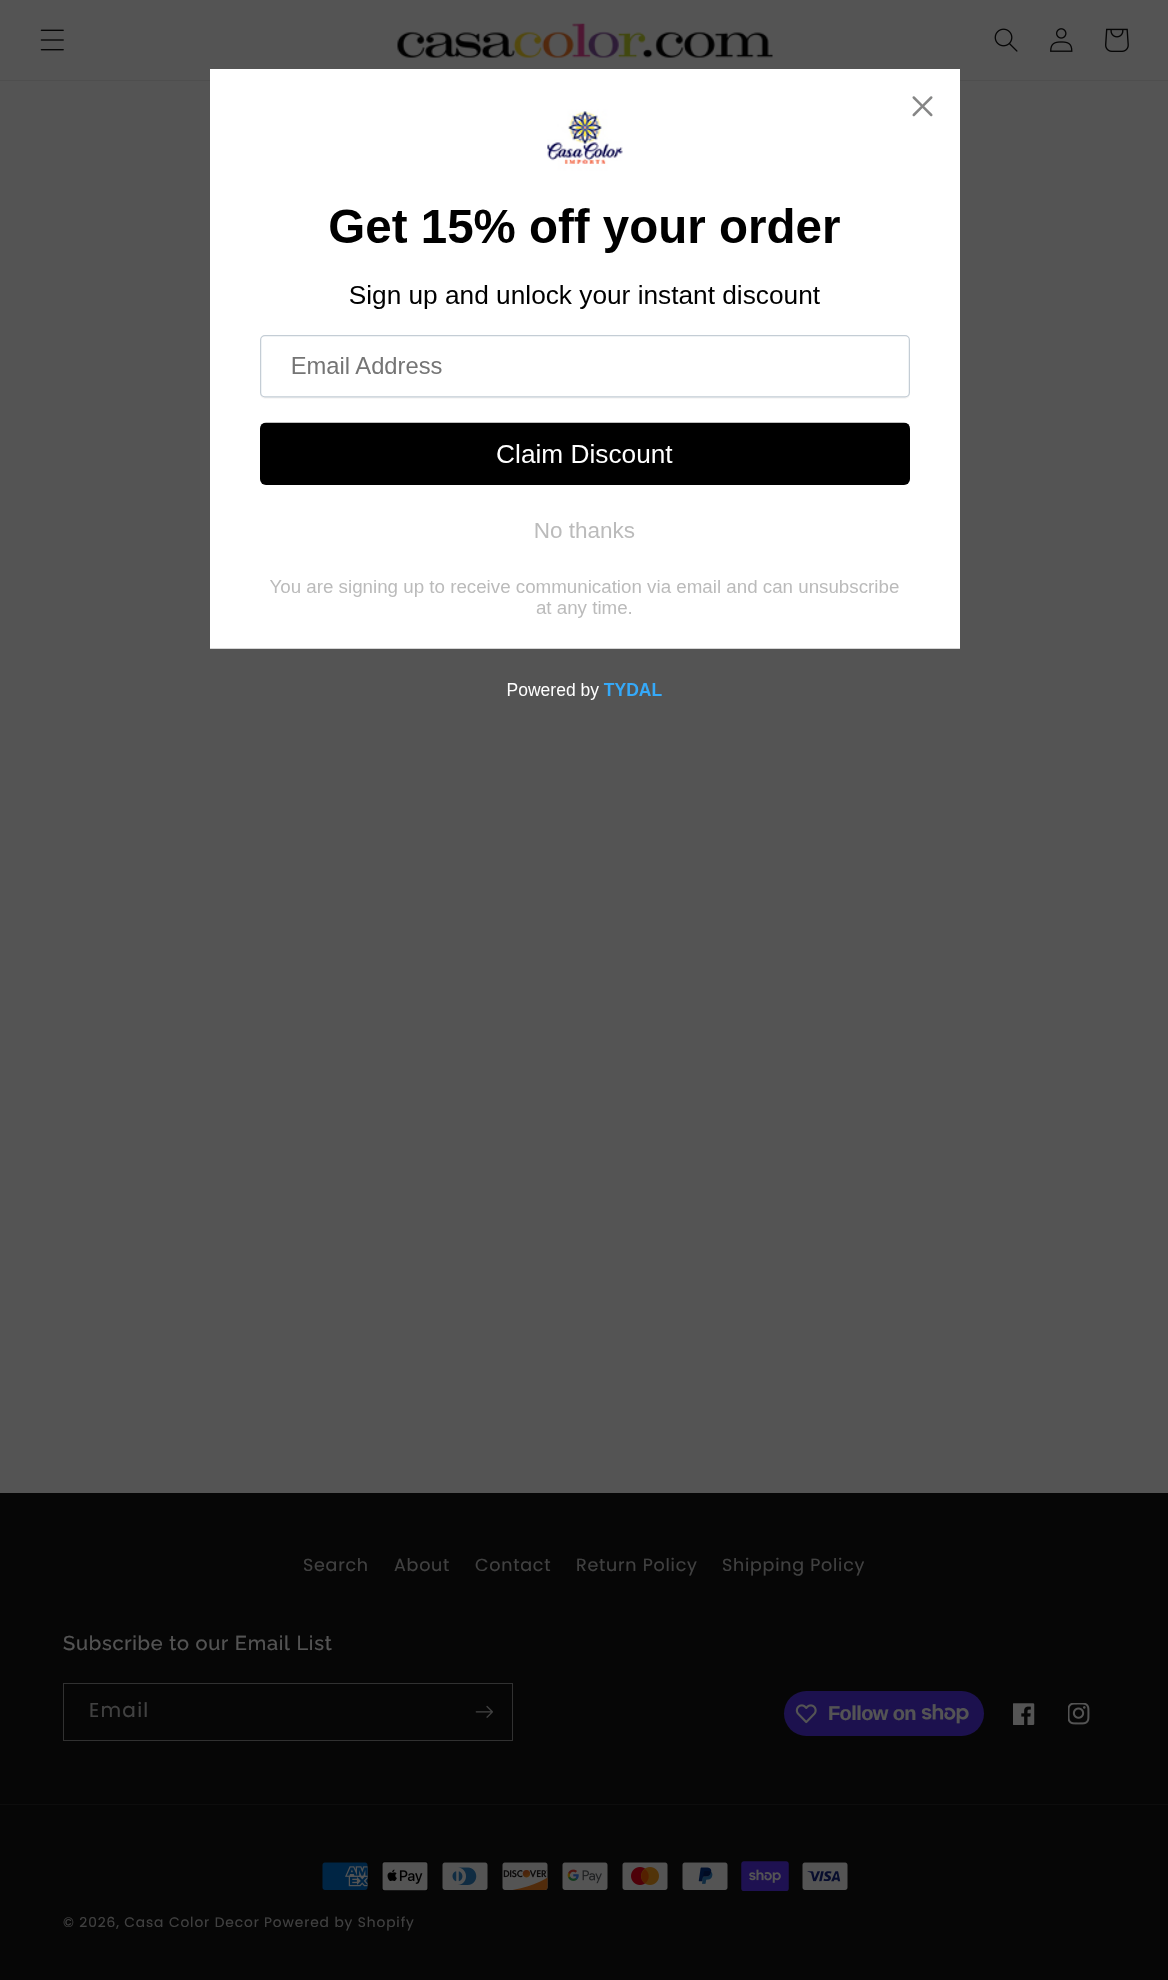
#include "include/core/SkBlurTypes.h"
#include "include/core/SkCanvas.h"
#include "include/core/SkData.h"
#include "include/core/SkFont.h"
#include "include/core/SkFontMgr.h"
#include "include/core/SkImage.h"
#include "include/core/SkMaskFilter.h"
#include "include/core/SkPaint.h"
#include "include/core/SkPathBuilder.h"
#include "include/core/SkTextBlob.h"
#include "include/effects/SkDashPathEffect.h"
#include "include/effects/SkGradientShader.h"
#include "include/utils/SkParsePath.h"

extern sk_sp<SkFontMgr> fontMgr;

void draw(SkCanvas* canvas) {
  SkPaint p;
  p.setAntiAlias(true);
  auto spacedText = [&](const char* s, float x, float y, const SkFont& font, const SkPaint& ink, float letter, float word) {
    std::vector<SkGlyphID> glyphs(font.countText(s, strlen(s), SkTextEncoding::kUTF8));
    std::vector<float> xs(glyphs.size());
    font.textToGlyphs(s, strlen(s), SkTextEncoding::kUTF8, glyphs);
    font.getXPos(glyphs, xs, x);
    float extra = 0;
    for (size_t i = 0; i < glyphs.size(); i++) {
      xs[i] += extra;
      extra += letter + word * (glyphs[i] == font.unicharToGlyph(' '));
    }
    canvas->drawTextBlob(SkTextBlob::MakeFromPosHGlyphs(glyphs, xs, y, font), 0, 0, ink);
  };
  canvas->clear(SK_ColorWHITE);
  p.setColor(SkColorSetRGB(236, 236, 236));
  canvas->drawRect(SkRect::MakeLTRB(0, 80, 1168, 81), p);
  canvas->drawImageRect(SkImages::DeferredFromEncodedData(SkData::MakeFromFileName("images/2.png")), SkRect::MakeLTRB(40, 29, 64, 51), SkSamplingOptions());
  canvas->drawImageRect(SkImages::DeferredFromEncodedData(SkData::MakeFromFileName("images/3.png")), SkRect::MakeLTRB(397, 23, 773, 58), SkSamplingOptions());
  canvas->drawImageRect(SkImages::DeferredFromEncodedData(SkData::MakeFromFileName("images/4.png")), SkRect::MakeLTRB(994, 28, 1018, 52), SkSamplingOptions());
  canvas->drawImageRect(SkImages::DeferredFromEncodedData(SkData::MakeFromFileName("images/5.png")), SkRect::MakeLTRB(1050, 28, 1073, 52), SkSamplingOptions());
  canvas->drawImageRect(SkImages::DeferredFromEncodedData(SkData::MakeFromFileName("images/6.png")), SkRect::MakeLTRB(1105, 28, 1129, 52), SkSamplingOptions());
  p.setColor(SkColorSetRGB(18, 18, 18));
  canvas->drawRect(SkRect::MakeLTRB(0, 1493, 1168, 1980), p);
  p.setStyle(SkPaint::kStroke_Style);
  p.setStrokeWidth(1);
  p.setColor(SkColorSetRGB(148, 148, 148));
  canvas->drawRect(SkRect::MakeLTRB(63.5f, 1683.5f, 512.5f, 1740.5f), p);
  canvas->drawImageRect(SkImages::DeferredFromEncodedData(SkData::MakeFromFileName("images/7.png")), SkRect::MakeLTRB(475, 1705, 493, 1718), SkSamplingOptions());
  p.setStyle(SkPaint::kFill_Style);
  p.setColor(SkColorSetRGB(84, 51, 235));
  canvas->drawRoundRect(SkRect::MakeLTRB(784, 1691, 984, 1736), 22.5f, 22.5f, p);
  canvas->drawImageRect(SkImages::DeferredFromEncodedData(SkData::MakeFromFileName("images/8.png")), SkRect::MakeLTRB(795, 1704, 817, 1724), SkSamplingOptions());
  canvas->drawImageRect(SkImages::DeferredFromEncodedData(SkData::MakeFromFileName("images/9.png")), SkRect::MakeLTRB(921, 1704, 969, 1724), SkSamplingOptions());
  canvas->drawImageRect(SkImages::DeferredFromEncodedData(SkData::MakeFromFileName("images/10.png")), SkRect::MakeLTRB(1013, 1703, 1035, 1725), SkSamplingOptions());
  canvas->drawImageRect(SkImages::DeferredFromEncodedData(SkData::MakeFromFileName("images/11.png")), SkRect::MakeLTRB(1068, 1703, 1090, 1725), SkSamplingOptions());
  p.setColor(SkColorSetRGB(37, 37, 37));
  canvas->drawRect(SkRect::MakeLTRB(0, 1804, 1168, 1805), p);
  canvas->drawImageRect(SkImages::DeferredFromEncodedData(SkData::MakeFromFileName("images/12.png")), SkRect::MakeLTRB(322, 1862, 368, 1890), SkSamplingOptions());
  canvas->drawImageRect(SkImages::DeferredFromEncodedData(SkData::MakeFromFileName("images/13.png")), SkRect::MakeLTRB(381, 1861, 429, 1891), SkSamplingOptions());
  canvas->drawImageRect(SkImages::DeferredFromEncodedData(SkData::MakeFromFileName("images/14.png")), SkRect::MakeLTRB(442, 1862, 488, 1890), SkSamplingOptions());
  canvas->drawImageRect(SkImages::DeferredFromEncodedData(SkData::MakeFromFileName("images/15.png")), SkRect::MakeLTRB(502, 1862, 548, 1890), SkSamplingOptions());
  canvas->drawImageRect(SkImages::DeferredFromEncodedData(SkData::MakeFromFileName("images/16.png")), SkRect::MakeLTRB(562, 1862, 608, 1890), SkSamplingOptions());
  canvas->drawImageRect(SkImages::DeferredFromEncodedData(SkData::MakeFromFileName("images/17.png")), SkRect::MakeLTRB(622, 1862, 668, 1890), SkSamplingOptions());
  canvas->drawImageRect(SkImages::DeferredFromEncodedData(SkData::MakeFromFileName("images/18.png")), SkRect::MakeLTRB(682, 1862, 728, 1890), SkSamplingOptions());
  canvas->drawImageRect(SkImages::DeferredFromEncodedData(SkData::MakeFromFileName("images/19.png")), SkRect::MakeLTRB(741, 1861, 789, 1891), SkSamplingOptions());
  canvas->drawImageRect(SkImages::DeferredFromEncodedData(SkData::MakeFromFileName("images/20.png")), SkRect::MakeLTRB(802, 1862, 848, 1890), SkSamplingOptions());
  SkFont font1(fontMgr->matchFamilyStyle("Poppins", SkFontStyle::Normal()), 17.5f);
  font1.setSubpixel(true);
  p.setColor(SkColorSetRGB(196, 196, 196));
  spacedText("Search", 303, 1571, font1, p, 0.75f, 0);
  spacedText("About", 394, 1571, font1, p, 0.75f, 0);
  spacedText("Contact", 475, 1571, font1, p, 0.75f, 0);
  spacedText("Return Policy", 576, 1571, font1, p, 0.75f, 0);
  spacedText("Shipping Policy", 722, 1571, font1, p, 0.75f, 0);
  SkFont font2(fontMgr->matchFamilyStyle("Raleway", SkFontStyle(500, SkFontStyle::kNormal_Width, SkFontStyle::kUpright_Slant)), 20);
  font2.setSubpixel(true);
  p.setColor(SK_ColorWHITE);
  spacedText("Subscribe to our Email List", 63, 1650, font2, p, 0.75f, 0);
  SkFont font3(fontMgr->matchFamilyStyle("Poppins", SkFontStyle::Normal()), 20);
  font3.setSubpixel(true);
  p.setColor(SkColorSetRGB(196, 196, 196));
  spacedText("Email", 89, 1717, font3, p, 1.25f, 0);
  SkFont font4(fontMgr->matchFamilyStyle("Liberation Sans", SkFontStyle::Bold()), 20);
  font4.setSubpixel(true);
  p.setColor(SK_ColorWHITE);
  spacedText("Follow on", 828, 1720, font4, p, -0.6f, 0);
  SkFont font5(fontMgr->matchFamilyStyle("Poppins", SkFontStyle::Normal()), 13.75f);
  font5.setSubpixel(true);
  p.setColor(SkColorSetRGB(196, 196, 196));
  spacedText("© 2026, Casa Color Decor", 63, 1927, font5, p, 0.9f, 0);
  spacedText("Powered by Shopify", 264, 1927, font5, p, 0.9f, 0);
  canvas->drawImageRect(SkImages::DeferredFromEncodedData(SkData::MakeFromFileName("images/1.png")), SkRect::MakeLTRB(0, 0, 1168, 1980), SkSamplingOptions());
}
